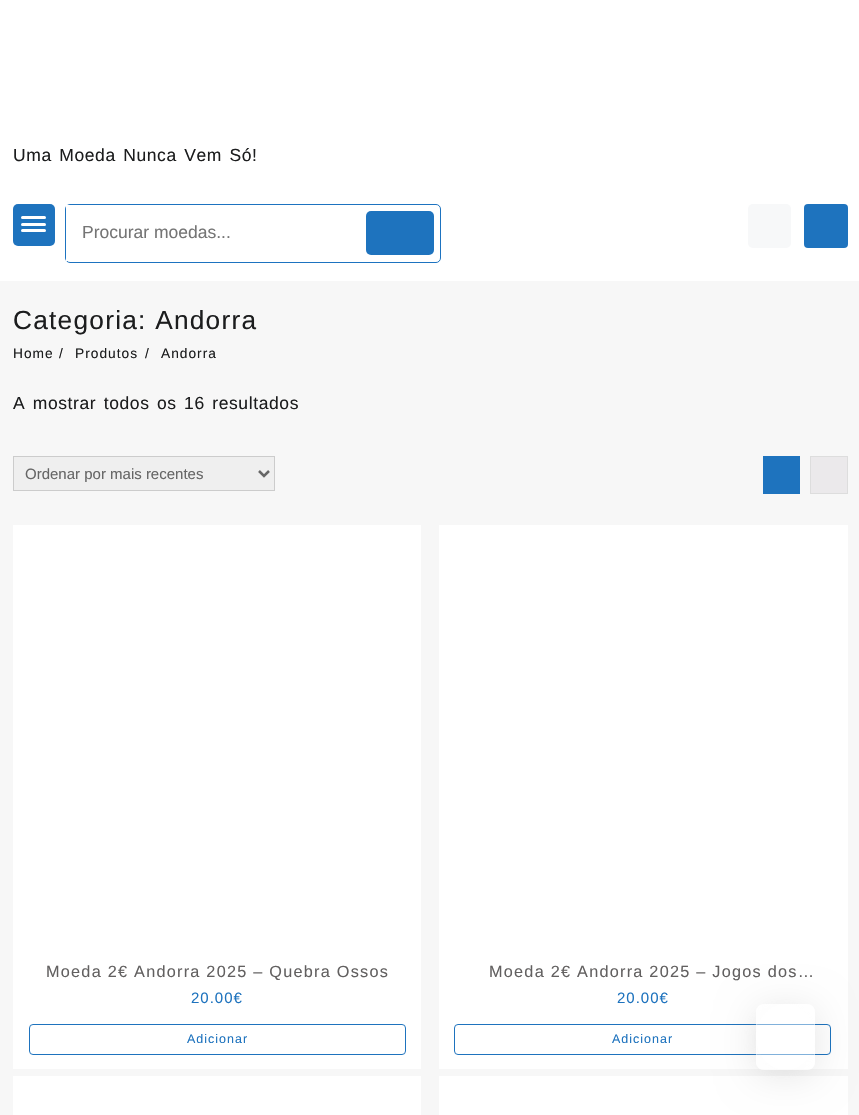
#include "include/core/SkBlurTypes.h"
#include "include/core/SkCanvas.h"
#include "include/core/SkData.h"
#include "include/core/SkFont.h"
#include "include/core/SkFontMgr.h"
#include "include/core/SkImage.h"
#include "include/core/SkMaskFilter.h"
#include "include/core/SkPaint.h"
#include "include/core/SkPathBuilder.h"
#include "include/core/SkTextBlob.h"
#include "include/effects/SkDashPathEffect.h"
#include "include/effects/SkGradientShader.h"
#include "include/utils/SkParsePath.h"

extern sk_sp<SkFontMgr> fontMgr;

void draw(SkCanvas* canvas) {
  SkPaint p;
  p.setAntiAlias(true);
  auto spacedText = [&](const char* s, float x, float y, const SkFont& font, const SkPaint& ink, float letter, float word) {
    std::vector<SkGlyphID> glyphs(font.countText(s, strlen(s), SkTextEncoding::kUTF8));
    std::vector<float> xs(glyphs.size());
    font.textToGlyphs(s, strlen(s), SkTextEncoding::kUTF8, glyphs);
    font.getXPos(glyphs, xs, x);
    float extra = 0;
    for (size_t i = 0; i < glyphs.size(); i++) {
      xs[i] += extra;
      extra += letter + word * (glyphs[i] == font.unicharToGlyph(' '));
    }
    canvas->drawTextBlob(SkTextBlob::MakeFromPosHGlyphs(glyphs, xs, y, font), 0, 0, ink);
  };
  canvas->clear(SkColorSetRGB(247, 247, 247));
  p.setColor(SK_ColorWHITE);
  canvas->drawRect(SkRect::MakeLTRB(0, 0, 859, 281), p);
  p.setColor(SkColorSetRGB(30, 115, 190));
  canvas->drawRoundRect(SkRect::MakeLTRB(13, 204, 55, 246), 5, 5, p);
  p.setColor(SK_ColorWHITE);
  canvas->drawRoundRect(SkRect::MakeLTRB(21, 216, 46, 219), 1.5f, 1.5f, p);
  canvas->drawRoundRect(SkRect::MakeLTRB(21, 223, 46, 226), 1.5f, 1.5f, p);
  canvas->drawRoundRect(SkRect::MakeLTRB(21, 229, 46, 232), 1.5f, 1.5f, p);
  p.setStyle(SkPaint::kStroke_Style);
  p.setStrokeWidth(1);
  p.setColor(SkColorSetRGB(29, 115, 192));
  canvas->drawRoundRect(SkRect::MakeLTRB(65.5f, 204.5f, 440.5f, 262.5f), 4.5f, 4.5f, p);
  p.setStyle(SkPaint::kFill_Style);
  p.setColor(SK_ColorWHITE);
  canvas->drawRect(SkRect::MakeLTRB(66, 205, 70, 261), p);
  p.setColor(SkColorSetRGB(30, 115, 190));
  canvas->drawRoundRect(SkRect::MakeLTRB(366, 211, 434, 255), 5, 5, p);
  p.setColor(SkColorSetRGB(247, 248, 249));
  canvas->drawRoundRect(SkRect::MakeLTRB(748, 204, 791, 248), 5, 5, p);
  p.setColor(SkColorSetRGB(30, 115, 190));
  canvas->drawRoundRect(SkRect::MakeLTRB(804, 204, 848, 248), 4, 4, p);
  p.setColor(SkColorSetRGB(239, 239, 239));
  canvas->drawRect(SkRect::MakeLTRB(13.5f, 456.5f, 274.5f, 490.5f), p);
  p.setStyle(SkPaint::kStroke_Style);
  p.setColor(SkColorSetRGB(204, 204, 204));
  canvas->drawRect(SkRect::MakeLTRB(13.5f, 456.5f, 274.5f, 490.5f), p);
  p.setStrokeWidth(2.5f);
  p.setColor(SkColorSetRGB(102, 102, 102));
  canvas->drawPath(SkPathBuilder().moveTo(259, 471).lineTo(264, 476).lineTo(269, 471).detach(), p);
  p.setStyle(SkPaint::kFill_Style);
  p.setColor(SkColorSetRGB(30, 115, 190));
  canvas->drawRect(SkRect::MakeLTRB(763, 456, 800, 494), p);
  p.setColor(SkColorSetRGB(235, 233, 235));
  canvas->drawRect(SkRect::MakeLTRB(810.5f, 456.5f, 847.5f, 493.5f), p);
  p.setStyle(SkPaint::kStroke_Style);
  p.setStrokeWidth(1);
  p.setColor(SkColorSetRGB(221, 221, 221));
  canvas->drawRect(SkRect::MakeLTRB(810.5f, 456.5f, 847.5f, 493.5f), p);
  p.setStyle(SkPaint::kFill_Style);
  p.setColor(SK_ColorWHITE);
  canvas->drawRect(SkRect::MakeLTRB(13, 525, 421, 1069), p);
  p.setStyle(SkPaint::kStroke_Style);
  p.setColor(SkColorSetRGB(30, 115, 190));
  canvas->drawRoundRect(SkRect::MakeLTRB(29.5f, 1024.5f, 405.5f, 1054.5f), 3.5f, 3.5f, p);
  p.setStyle(SkPaint::kFill_Style);
  p.setColor(SK_ColorWHITE);
  canvas->drawRect(SkRect::MakeLTRB(439, 525, 848, 1069), p);
  p.setStyle(SkPaint::kStroke_Style);
  p.setColor(SkColorSetRGB(30, 115, 190));
  canvas->drawRoundRect(SkRect::MakeLTRB(454.5f, 1024.5f, 830.5f, 1054.5f), 3.5f, 3.5f, p);
  p.setStyle(SkPaint::kFill_Style);
  p.setColor(SK_ColorWHITE);
  canvas->drawRect(SkRect::MakeLTRB(13, 1076, 421, 1115), p);
  canvas->drawRect(SkRect::MakeLTRB(439, 1076, 848, 1115), p);
  canvas->save();
  canvas->clipPath(SkPathBuilder(SkPathFillType::kEvenOdd).moveTo(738, 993).lineTo(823, 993).lineTo(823, 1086).lineTo(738, 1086).close().moveTo(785.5f, 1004).cubicTo(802, 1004, 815, 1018.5f, 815, 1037).cubicTo(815, 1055, 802, 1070, 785.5f, 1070).cubicTo(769.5f, 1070, 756, 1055, 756, 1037).cubicTo(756, 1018.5f, 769.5f, 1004, 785.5f, 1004).close().detach(), true);
  p.setColor(SkColorSetARGB(26, 221, 221, 221));
  p.setMaskFilter(SkMaskFilter::MakeBlur(kNormal_SkBlurStyle, 4));
  canvas->drawRoundRect(SkRect::MakeLTRB(751, 1006, 810, 1073), 29.5f, 29.5f, p);
  p.setMaskFilter(nullptr);
  canvas->restore();
  canvas->save();
  canvas->clipPath(SkPathBuilder(SkPathFillType::kEvenOdd).moveTo(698, 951).lineTo(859, 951).lineTo(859, 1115).lineTo(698, 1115).close().moveTo(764, 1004).lineTo(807, 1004).cubicTo(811.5f, 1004, 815, 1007.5f, 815, 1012).lineTo(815, 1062).cubicTo(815, 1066.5f, 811.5f, 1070, 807, 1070).lineTo(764, 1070).cubicTo(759.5f, 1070, 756, 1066.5f, 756, 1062).lineTo(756, 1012).cubicTo(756, 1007.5f, 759.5f, 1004, 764, 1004).close().detach(), true);
  p.setColor(SkColorSetARGB(26, 0, 0, 0));
  p.setMaskFilter(SkMaskFilter::MakeBlur(kNormal_SkBlurStyle, 19));
  canvas->drawRoundRect(SkRect::MakeLTRB(756, 1009, 815, 1075), 8, 8, p);
  p.setMaskFilter(nullptr);
  canvas->restore();
  p.setColor(SkColorSetARGB(112, 255, 255, 255));
  canvas->drawRoundRect(SkRect::MakeLTRB(756, 1004, 815, 1070), 8, 8, p);
  p.setStyle(SkPaint::kStroke_Style);
  p.setColor(SkColorSetARGB(69, 255, 255, 255));
  canvas->drawRoundRect(SkRect::MakeLTRB(756.5f, 1004.5f, 814.5f, 1069.5f), 7.5f, 7.5f, p);
  SkFont font1(fontMgr->matchFamilyStyle("Liberation Sans", SkFontStyle::Normal()), 17.5f);
  font1.setSubpixel(true);
  p.setStyle(SkPaint::kFill_Style);
  p.setColor(SkColorSetRGB(28, 29, 30));
  spacedText("Uma Moeda Nunca Vem Só!", 13, 161, font1, p, 0.6f, 2);
  p.setColor(SkColorSetRGB(117, 117, 117));
  canvas->drawString("Procurar moedas...", 82, 238, font1, p);
  SkFont font2(fontMgr->matchFamilyStyle("Liberation Sans", SkFontStyle::Normal()), 26.25f);
  font2.setSubpixel(true);
  p.setColor(SkColorSetRGB(28, 29, 30));
  spacedText("Categoria: Andorra", 13, 329, font2, p, 1.25f, 0);
  SkFont font3(fontMgr->matchFamilyStyle("Liberation Sans", SkFontStyle::Normal()), 13.75f);
  font3.setSubpixel(true);
  spacedText("Home", 13, 358, font3, p, 1, 0);
  spacedText("/", 59, 358, font3, p, 1, 0);
  spacedText("Produtos", 75, 358, font3, p, 1, 0);
  spacedText("/", 145, 358, font3, p, 1, 0);
  spacedText("Andorra", 161, 358, font3, p, 1, 0);
  spacedText("A mostrar todos os 16 resultados", 13, 409, font1, p, 0.6f, 2);
  SkFont font4(fontMgr->matchFamilyStyle("Liberation Sans", SkFontStyle::Normal()), 15);
  font4.setSubpixel(true);
  p.setColor(SkColorSetRGB(102, 102, 102));
  canvas->drawString("Ordenar por mais recentes", 25, 479, font4, p);
  SkFont font5(fontMgr->matchFamilyStyle("Liberation Sans", SkFontStyle::Normal()), 16.25f);
  font5.setSubpixel(true);
  p.setColor(SkColorSetRGB(98, 96, 96));
  spacedText("Moeda 2€ Andorra 2025 – Quebra Ossos", 46, 977, font5, p, 1.25f, 0);
  p.setColor(SkColorSetRGB(30, 115, 190));
  spacedText("20.00€", 191, 1003, font4, p, 1, 0);
  SkFont font6(fontMgr->matchFamilyStyle("Liberation Sans", SkFontStyle::Normal()), 12.5f);
  font6.setSubpixel(true);
  spacedText("Adicionar", 187, 1043, font6, p, 1, 0);
  p.setColor(SkColorSetRGB(98, 96, 96));
  spacedText("Moeda 2€ Andorra 2025 – Jogos dos…", 489, 977, font5, p, 1.25f, 0);
  p.setColor(SkColorSetRGB(30, 115, 190));
  spacedText("20.00€", 617, 1003, font4, p, 1, 0);
  spacedText("Adicionar", 612, 1043, font6, p, 1, 0);
}
